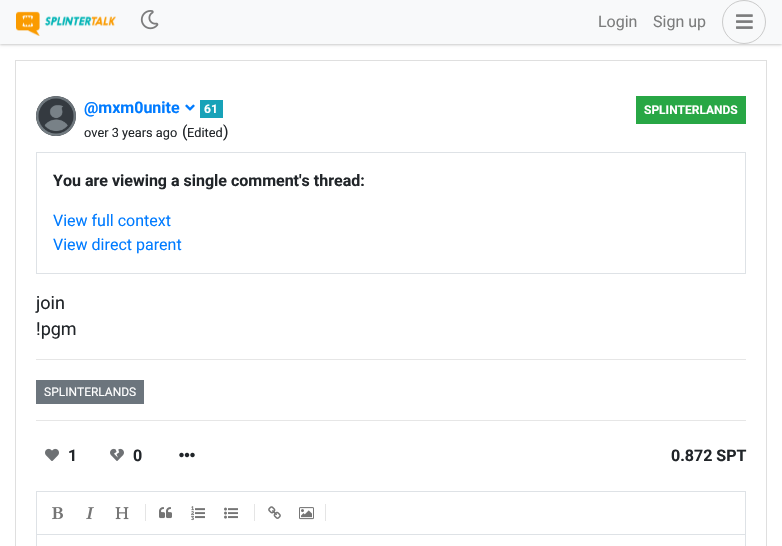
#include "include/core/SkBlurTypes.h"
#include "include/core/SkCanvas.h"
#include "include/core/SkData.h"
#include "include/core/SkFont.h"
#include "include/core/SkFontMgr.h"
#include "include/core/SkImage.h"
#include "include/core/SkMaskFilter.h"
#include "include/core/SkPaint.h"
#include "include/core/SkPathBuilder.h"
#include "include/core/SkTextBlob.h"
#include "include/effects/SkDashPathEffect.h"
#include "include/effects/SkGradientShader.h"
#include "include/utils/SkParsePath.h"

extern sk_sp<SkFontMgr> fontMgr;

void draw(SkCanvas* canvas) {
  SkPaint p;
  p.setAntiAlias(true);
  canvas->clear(SK_ColorWHITE);
  p.setColor(SkColorSetARGB(36, 0, 0, 0));
  p.setMaskFilter(SkMaskFilter::MakeBlur(kNormal_SkBlurStyle, 1));
  canvas->drawRect(SkRect::MakeLTRB(0, 1, 782, 45), p);
  p.setMaskFilter(nullptr);
  p.setColor(SkColorSetARGB(18, 0, 0, 0));
  p.setMaskFilter(SkMaskFilter::MakeBlur(kNormal_SkBlurStyle, 1.5f));
  canvas->drawRect(SkRect::MakeLTRB(0, 1, 782, 45), p);
  p.setMaskFilter(nullptr);
  p.setColor(SkColorSetRGB(248, 249, 250));
  canvas->drawRect(SkRect::MakeLTRB(0, 0, 782, 44), p);
  canvas->drawImageRect(SkImages::DeferredFromEncodedData(SkData::MakeFromFileName("images/1.png")), SkRect::MakeLTRB(16, 11, 116, 36), SkSamplingOptions());
  canvas->drawImageRect(SkImages::DeferredFromEncodedData(SkData::MakeFromFileName("images/2.png")), SkRect::MakeLTRB(140, 10, 159, 30), SkSamplingOptions());
  p.setStyle(SkPaint::kStroke_Style);
  p.setStrokeWidth(1);
  p.setColor(SkColorSetRGB(202, 202, 202));
  canvas->drawCircle(744, 22, 21.5f, p);
  canvas->drawImageRect(SkImages::DeferredFromEncodedData(SkData::MakeFromFileName("images/3.png")), SkRect::MakeLTRB(736, 14, 753, 29), SkSamplingOptions());
  p.setColor(SkColorSetRGB(223, 223, 223));
  canvas->drawRect(SkRect::MakeLTRB(15.5f, 60.5f, 766.5f, 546.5f), p);
  p.setStyle(SkPaint::kFill_Style);
  p.setColor(SkColorSetRGB(52, 58, 64));
  canvas->drawCircle(56, 116, 20, p);
  canvas->drawImageRect(SkImages::DeferredFromEncodedData(SkData::MakeFromFileName("images/4.png")), SkRect::MakeLTRB(36, 96, 76, 136), SkSamplingOptions());
  canvas->drawImageRect(SkImages::DeferredFromEncodedData(SkData::MakeFromFileName("images/5.png")), SkRect::MakeLTRB(185, 104, 195, 111), SkSamplingOptions());
  p.setColor(SkColorSetRGB(23, 162, 184));
  canvas->drawRect(SkRect::MakeLTRB(200, 100, 223, 118), p);
  p.setColor(SkColorSetRGB(40, 167, 69));
  canvas->drawRect(SkRect::MakeLTRB(636, 96, 746, 124), p);
  p.setStyle(SkPaint::kStroke_Style);
  p.setColor(SkColorSetRGB(222, 226, 230));
  canvas->drawRect(SkRect::MakeLTRB(36.5f, 152.5f, 745.5f, 273.5f), p);
  p.setStyle(SkPaint::kFill_Style);
  p.setColor(SkColorSetRGB(230, 230, 230));
  canvas->drawRect(SkRect::MakeLTRB(36, 359, 746, 360), p);
  p.setColor(SkColorSetRGB(108, 117, 125));
  canvas->drawRect(SkRect::MakeLTRB(36, 380, 144, 404), p);
  p.setColor(SkColorSetRGB(230, 230, 230));
  canvas->drawRect(SkRect::MakeLTRB(36, 420, 746, 421), p);
  canvas->drawImageRect(SkImages::DeferredFromEncodedData(SkData::MakeFromFileName("images/6.png")), SkRect::MakeLTRB(45, 448, 59, 461), SkSamplingOptions());
  canvas->drawImageRect(SkImages::DeferredFromEncodedData(SkData::MakeFromFileName("images/7.png")), SkRect::MakeLTRB(110, 448, 124, 461), SkSamplingOptions());
  canvas->drawImageRect(SkImages::DeferredFromEncodedData(SkData::MakeFromFileName("images/8.png")), SkRect::MakeLTRB(179, 452, 195, 458), SkSamplingOptions());
  p.setStyle(SkPaint::kStroke_Style);
  p.setColor(SkColorSetRGB(222, 226, 230));
  canvas->drawRect(SkRect::MakeLTRB(36.5f, 491.5f, 745.5f, 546.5f), p);
  p.setStyle(SkPaint::kFill_Style);
  canvas->drawRect(SkRect::MakeLTRB(37, 534, 745, 535), p);
  canvas->drawImageRect(SkImages::DeferredFromEncodedData(SkData::MakeFromFileName("images/9.png")), SkRect::MakeLTRB(52, 507, 63, 520), SkSamplingOptions());
  canvas->drawImageRect(SkImages::DeferredFromEncodedData(SkData::MakeFromFileName("images/10.png")), SkRect::MakeLTRB(86, 507, 94, 520), SkSamplingOptions());
  canvas->drawImageRect(SkImages::DeferredFromEncodedData(SkData::MakeFromFileName("images/11.png")), SkRect::MakeLTRB(115, 507, 129, 520), SkSamplingOptions());
  p.setColor(SkColorSetRGB(229, 229, 229));
  canvas->drawRect(SkRect::MakeLTRB(145, 504, 146, 521), p);
  canvas->drawImageRect(SkImages::DeferredFromEncodedData(SkData::MakeFromFileName("images/12.png")), SkRect::MakeLTRB(159, 507, 172, 519), SkSamplingOptions());
  canvas->drawImageRect(SkImages::DeferredFromEncodedData(SkData::MakeFromFileName("images/13.png")), SkRect::MakeLTRB(191, 506, 205, 521), SkSamplingOptions());
  canvas->drawImageRect(SkImages::DeferredFromEncodedData(SkData::MakeFromFileName("images/14.png")), SkRect::MakeLTRB(224, 507, 238, 519), SkSamplingOptions());
  canvas->drawRect(SkRect::MakeLTRB(254, 504, 255, 521), p);
  canvas->drawImageRect(SkImages::DeferredFromEncodedData(SkData::MakeFromFileName("images/15.png")), SkRect::MakeLTRB(268, 506, 281, 519), SkSamplingOptions());
  canvas->drawImageRect(SkImages::DeferredFromEncodedData(SkData::MakeFromFileName("images/16.png")), SkRect::MakeLTRB(299, 507, 314, 520), SkSamplingOptions());
  canvas->drawRect(SkRect::MakeLTRB(325, 504, 326, 521), p);
  SkFont font1(fontMgr->matchFamilyStyle("Roboto", SkFontStyle::Normal()), 16);
  font1.setSubpixel(true);
  p.setColor(SkColorSetRGB(124, 125, 125));
  canvas->drawString("Login", 598, 27, font1, p);
  canvas->drawString("Sign up", 653, 27, font1, p);
  SkFont font2(fontMgr->matchFamilyStyle("Roboto", SkFontStyle::Bold()), 16);
  font2.setSubpixel(true);
  p.setColor(SkColorSetRGB(0, 123, 255));
  canvas->drawString("@mxm0unite", 84, 113, font2, p);
  SkFont font3(fontMgr->matchFamilyStyle("Roboto", SkFontStyle::Bold()), 12);
  font3.setSubpixel(true);
  p.setColor(SK_ColorWHITE);
  canvas->drawString("61", 204, 113, font3, p);
  SkFont font4(fontMgr->matchFamilyStyle("Roboto", SkFontStyle::Normal()), 12.75f);
  font4.setSubpixel(true);
  p.setColor(SkColorSetRGB(33, 37, 41));
  canvas->drawString("over 3 years ago", 84, 137, font4, p);
  canvas->drawString("(", 182, 137, font1, p);
  canvas->drawString("Edited", 187, 137, font4, p);
  canvas->drawString(")", 223, 137, font1, p);
  p.setColor(SK_ColorWHITE);
  canvas->drawString("SPLINTERLANDS", 644, 114, font3, p);
  p.setColor(SkColorSetRGB(33, 37, 41));
  canvas->drawString("You are viewing a single comment's thread:", 53, 186, font2, p);
  p.setColor(SkColorSetRGB(0, 123, 255));
  canvas->drawString("View full context", 53, 226, font1, p);
  canvas->drawString("View direct parent", 53, 250, font1, p);
  SkFont font5(fontMgr->matchFamilyStyle("Roboto", SkFontStyle::Normal()), 18);
  font5.setSubpixel(true);
  p.setColor(SkColorSetRGB(33, 37, 41));
  canvas->drawString("join", 36, 309, font5, p);
  canvas->drawString("!pgm", 36, 335, font5, p);
  SkFont font6(fontMgr->matchFamilyStyle("Roboto", SkFontStyle::Normal()), 12);
  font6.setSubpixel(true);
  p.setColor(SK_ColorWHITE);
  canvas->drawString("SPLINTERLANDS", 44, 396, font6, p);
  p.setColor(SkColorSetRGB(33, 37, 41));
  canvas->drawString("1", 68, 461, font2, p);
  canvas->drawString("0", 133, 461, font2, p);
  canvas->drawString("0.872 SPT", 671, 461, font2, p);
}
